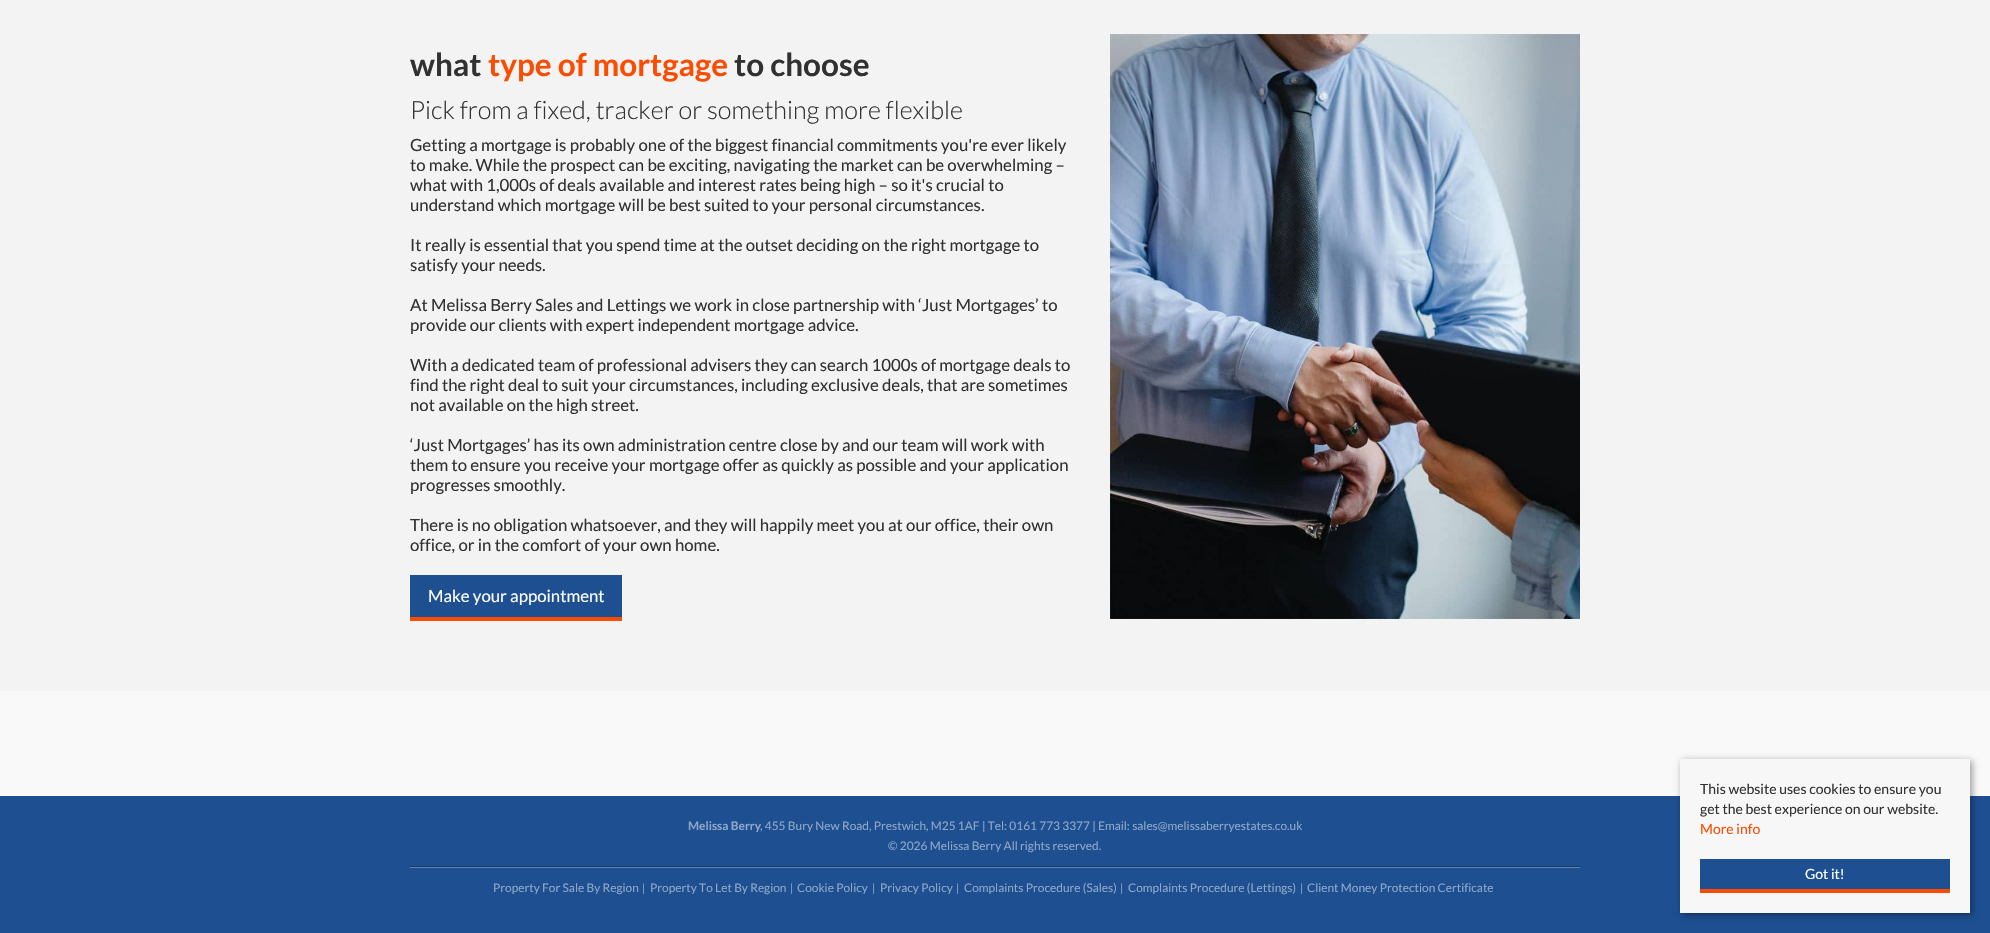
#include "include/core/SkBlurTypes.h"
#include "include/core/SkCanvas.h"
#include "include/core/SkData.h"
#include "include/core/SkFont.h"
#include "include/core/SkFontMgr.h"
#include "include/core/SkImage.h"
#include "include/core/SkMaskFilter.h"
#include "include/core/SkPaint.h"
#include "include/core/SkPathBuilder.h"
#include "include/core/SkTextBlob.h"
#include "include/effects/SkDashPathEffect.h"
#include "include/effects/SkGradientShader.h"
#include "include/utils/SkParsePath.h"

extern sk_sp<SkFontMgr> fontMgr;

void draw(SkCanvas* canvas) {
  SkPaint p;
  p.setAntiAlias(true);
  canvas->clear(SkColorSetRGB(29, 79, 145));
  p.setColor(SkColorSetRGB(243, 243, 243));
  canvas->drawRect(SkRect::MakeLTRB(0, 0, 1990, 691), p);
  p.setColor(SkColorSetRGB(29, 79, 145));
  canvas->drawRect(SkRect::MakeLTRB(410, 575, 622, 617), p);
  p.setColor(SkColorSetRGB(252, 76, 2));
  canvas->drawRect(SkRect::MakeLTRB(410, 617, 622, 621), p);
  canvas->drawImageRect(SkImages::DeferredFromEncodedData(SkData::MakeFromFileName("images/1.png")), SkRect::MakeLTRB(1110, 34, 1580, 619), SkSamplingOptions());
  p.setColor(SkColorSetRGB(249, 249, 249));
  canvas->drawRect(SkRect::MakeLTRB(0, 691, 1990, 796), p);
  p.setColor(SkColorSetRGB(20, 55, 102));
  canvas->drawRect(SkRect::MakeLTRB(410, 866, 1580, 867), p);
  p.setColor(SkColorSetRGB(97, 132, 178));
  canvas->drawRect(SkRect::MakeLTRB(410, 867, 1580, 868), p);
  p.setColor(SkColorSetARGB(102, 0, 0, 0));
  p.setMaskFilter(SkMaskFilter::MakeBlur(kNormal_SkBlurStyle, 3.5f));
  canvas->drawRect(SkRect::MakeLTRB(1682, 761, 1972, 915), p);
  p.setMaskFilter(nullptr);
  p.setColor(SkColorSetRGB(247, 247, 247));
  canvas->drawRect(SkRect::MakeLTRB(1680, 759, 1970, 913), p);
  p.setColor(SkColorSetRGB(29, 79, 145));
  canvas->drawRect(SkRect::MakeLTRB(1700, 859, 1950, 889), p);
  p.setColor(SkColorSetRGB(252, 76, 2));
  canvas->drawRect(SkRect::MakeLTRB(1700, 889, 1950, 893), p);
  SkFont font1(fontMgr->matchFamilyStyle("Lato", SkFontStyle::Bold()), 31.5f);
  font1.setSubpixel(true);
  p.setColor(SkColorSetRGB(49, 49, 49));
  canvas->drawString("what", 410, 76, font1, p);
  p.setColor(SkColorSetRGB(252, 76, 2));
  canvas->drawString("type of mortgage", 488, 76, font1, p);
  p.setColor(SkColorSetRGB(49, 49, 49));
  canvas->drawString("to choose", 734, 76, font1, p);
  SkFont font2(fontMgr->matchFamilyStyle("Lato", SkFontStyle(300, SkFontStyle::kNormal_Width, SkFontStyle::kUpright_Slant)), 25.2f);
  font2.setSubpixel(true);
  canvas->drawString("Pick from a fixed, tracker or something more flexible", 410, 119, font2, p);
  SkFont font3(fontMgr->matchFamilyStyle("Lato", SkFontStyle::Normal()), 16.8f);
  font3.setSubpixel(true);
  canvas->drawString("Getting a mortgage is probably one of the biggest financial commitments you're ever likely", 410, 151, font3, p);
  canvas->drawString("to make. While the prospect can be exciting, navigating the market can be overwhelming –", 410, 171, font3, p);
  canvas->drawString("what with 1,000s of deals available and interest rates being high – so it's crucial to", 410, 191, font3, p);
  canvas->drawString("understand which mortgage will be best suited to your personal circumstances.", 410, 211, font3, p);
  canvas->drawString("It really is essential that you spend time at the outset deciding on the right mortgage to", 410, 251, font3, p);
  canvas->drawString("satisfy your needs.", 410, 271, font3, p);
  canvas->drawString("At Melissa Berry Sales and Lettings we work in close partnership with ‘Just Mortgages’ to", 410, 311, font3, p);
  canvas->drawString("provide our clients with expert independent mortgage advice.", 410, 331, font3, p);
  canvas->drawString("With a dedicated team of professional advisers they can search 1000s of mortgage deals to", 410, 371, font3, p);
  canvas->drawString("find the right deal to suit your circumstances, including exclusive deals, that are sometimes", 410, 391, font3, p);
  canvas->drawString("not available on the high street.", 410, 411, font3, p);
  canvas->drawString("‘Just Mortgages’ has its own administration centre close by and our team will work with", 410, 451, font3, p);
  canvas->drawString("them to ensure you receive your mortgage offer as quickly as possible and your application", 410, 471, font3, p);
  canvas->drawString("progresses smoothly.", 410, 491, font3, p);
  canvas->drawString("There is no obligation whatsoever, and they will happily meet you at our office, their own", 410, 531, font3, p);
  canvas->drawString("office, or in the comfort of your own home.", 410, 551, font3, p);
  p.setColor(SK_ColorWHITE);
  canvas->drawString("Make your appointment", 428, 602, font3, p);
  SkFont font4(fontMgr->matchFamilyStyle("Lato", SkFontStyle::Bold()), 11.9f);
  font4.setSubpixel(true);
  p.setColor(SkColorSetRGB(142, 167, 200));
  canvas->drawString("Melissa Berry", 688, 830, font4, p);
  SkFont font5(fontMgr->matchFamilyStyle("Lato", SkFontStyle::Normal()), 11.9f);
  font5.setSubpixel(true);
  canvas->drawString(", 455 Bury New Road, Prestwich, M25 1AF | Tel: 0161 773 3377 | Email: sales@melissaberryestates.co.uk", 760, 830, font5, p);
  canvas->drawString("© 2026 Melissa Berry All rights reserved.", 888, 850, font5, p);
  canvas->drawString("Property For Sale By Region", 493, 892, font5, p);
  SkFont font6(fontMgr->matchFamilyStyle("Lato", SkFontStyle::Normal()), 11);
  font6.setSubpixel(true);
  canvas->drawString("|", 642, 892, font6, p);
  canvas->drawString("Property To Let By Region", 650, 892, font5, p);
  canvas->drawString("|", 790, 892, font6, p);
  canvas->drawString("Cookie Policy", 797, 892, font5, p);
  canvas->drawString("|", 872, 892, font6, p);
  canvas->drawString("Privacy Policy", 880, 892, font5, p);
  canvas->drawString("|", 956, 892, font6, p);
  canvas->drawString("Complaints Procedure (Sales)", 964, 892, font5, p);
  canvas->drawString("|", 1120, 892, font6, p);
  canvas->drawString("Complaints Procedure (Lettings)", 1128, 892, font5, p);
  canvas->drawString("|", 1300, 892, font6, p);
  canvas->drawString("Client Money Protection Certificate", 1307, 892, font5, p);
  SkFont font7(fontMgr->matchFamilyStyle("Lato", SkFontStyle::Normal()), 14);
  font7.setSubpixel(true);
  p.setColor(SkColorSetRGB(49, 49, 49));
  canvas->drawString("This website uses cookies to ensure you", 1700, 794, font7, p);
  canvas->drawString("get the best experience on our website.", 1700, 814, font7, p);
  p.setColor(SkColorSetRGB(252, 76, 2));
  canvas->drawString("More info", 1700, 834, font7, p);
  p.setColor(SK_ColorWHITE);
  canvas->drawString("Got it!", 1805, 879, font7, p);
}
